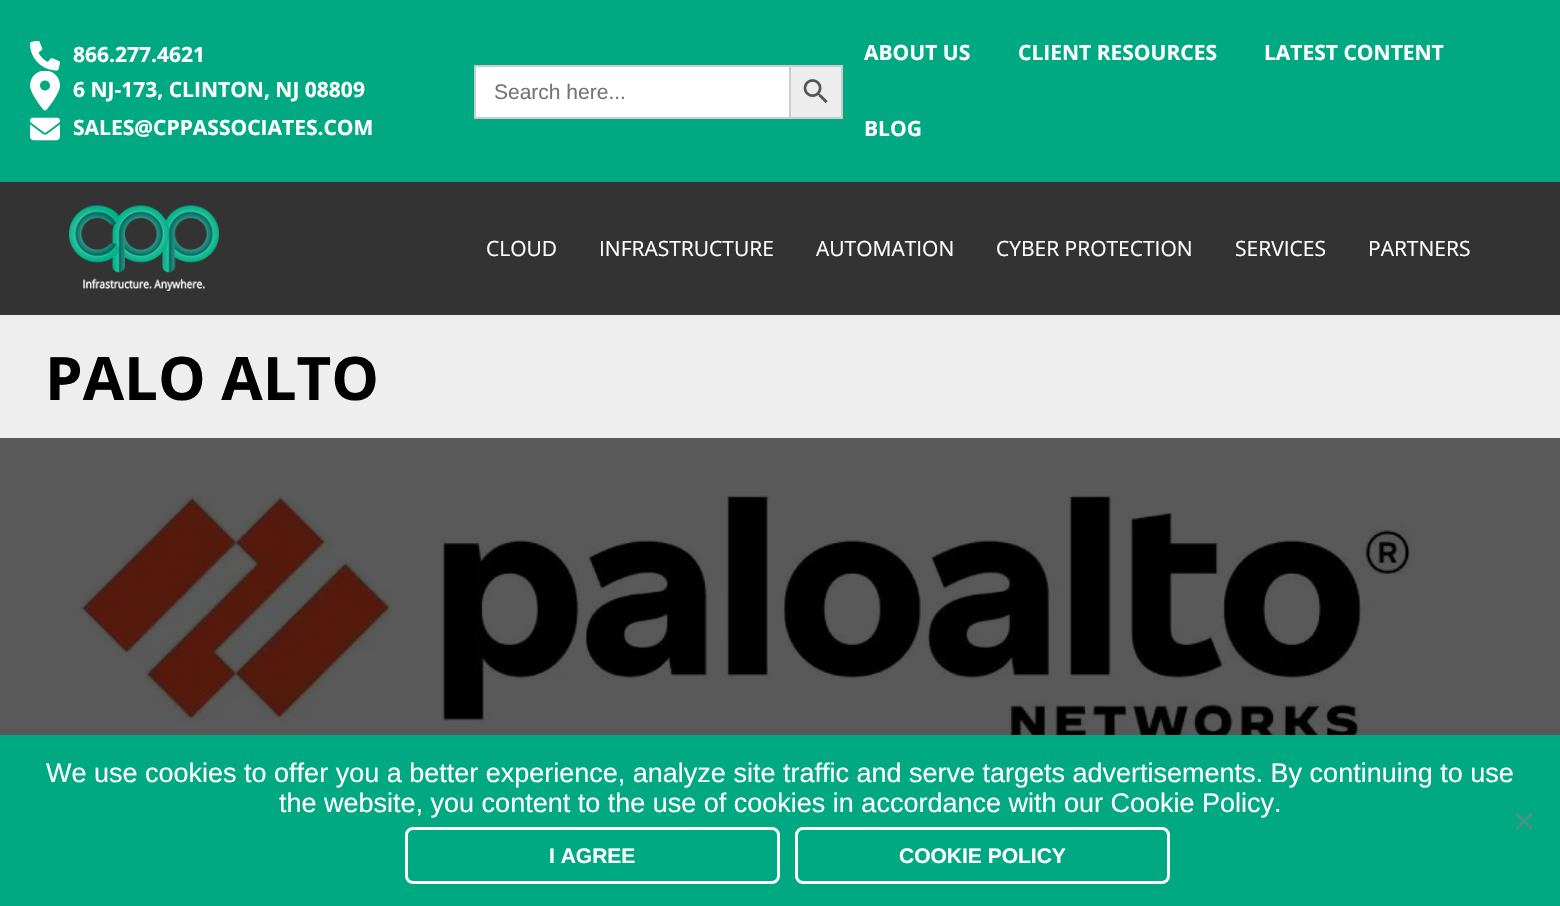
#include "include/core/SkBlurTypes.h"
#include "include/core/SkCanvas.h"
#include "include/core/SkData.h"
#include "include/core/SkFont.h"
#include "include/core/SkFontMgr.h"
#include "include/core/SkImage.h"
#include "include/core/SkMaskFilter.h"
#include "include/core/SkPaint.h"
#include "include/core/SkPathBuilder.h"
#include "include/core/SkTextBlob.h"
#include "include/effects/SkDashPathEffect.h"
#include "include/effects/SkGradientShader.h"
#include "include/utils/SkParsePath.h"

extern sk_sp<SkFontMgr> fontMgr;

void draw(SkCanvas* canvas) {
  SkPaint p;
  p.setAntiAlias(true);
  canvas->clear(SkColorSetRGB(89, 89, 89));
  p.setColor(SkColorSetRGB(1, 169, 130));
  canvas->drawRect(SkRect::MakeLTRB(0, 0, 1560, 182), p);
  canvas->drawImageRect(SkImages::DeferredFromEncodedData(SkData::MakeFromFileName("images/1.png")), SkRect::MakeLTRB(30, 41, 60, 71), SkSamplingOptions());
  canvas->drawImageRect(SkImages::DeferredFromEncodedData(SkData::MakeFromFileName("images/2.png")), SkRect::MakeLTRB(30, 71, 60, 111), SkSamplingOptions());
  canvas->drawImageRect(SkImages::DeferredFromEncodedData(SkData::MakeFromFileName("images/3.png")), SkRect::MakeLTRB(30, 117, 60, 141), SkSamplingOptions());
  p.setColor(SK_ColorWHITE);
  canvas->drawRect(SkRect::MakeLTRB(476, 67, 789, 117), p);
  p.setColor(SkColorSetRGB(204, 204, 204));
  canvas->drawRect(SkRect::MakeLTRB(474, 65, 789, 67), p);
  canvas->drawRect(SkRect::MakeLTRB(474, 117, 789, 119), p);
  canvas->drawRect(SkRect::MakeLTRB(474, 65, 476, 119), p);
  p.setColor(SkColorSetRGB(237, 237, 237));
  canvas->drawRect(SkRect::MakeLTRB(790, 66, 842, 118), p);
  p.setStyle(SkPaint::kStroke_Style);
  p.setStrokeWidth(2);
  p.setColor(SkColorSetRGB(204, 204, 204));
  canvas->drawRect(SkRect::MakeLTRB(790, 66, 842, 118), p);
  canvas->drawImageRect(SkImages::DeferredFromEncodedData(SkData::MakeFromFileName("images/4.png")), SkRect::MakeLTRB(803, 79, 828, 104), SkSamplingOptions());
  p.setStyle(SkPaint::kFill_Style);
  p.setColor(SkColorSetRGB(51, 51, 51));
  canvas->drawRect(SkRect::MakeLTRB(0, 182, 1560, 315), p);
  canvas->drawImageRect(SkImages::DeferredFromEncodedData(SkData::MakeFromFileName("images/5.png")), SkRect::MakeLTRB(69, 205, 219, 291), SkSamplingOptions());
  p.setColor(SkColorSetRGB(238, 238, 238));
  canvas->drawRect(SkRect::MakeLTRB(0, 315, 1560, 438), p);
  canvas->drawImageRect(SkImages::DeferredFromEncodedData(SkData::MakeFromFileName("images/6.png")), SkRect::MakeLTRB(77, 490, 1414, 735), SkSamplingOptions());
  p.setColor(SkColorSetRGB(1, 169, 130));
  canvas->drawRect(SkRect::MakeLTRB(0, 735, 1560, 906), p);
  p.setColor(SkColorSetRGB(65, 149, 129));
  canvas->drawPath(SkPathBuilder().moveTo(1531, 812).lineTo(1533, 814.5f).lineTo(1517, 830.5f).lineTo(1515, 828).close().detach(), p);
  canvas->drawPath(SkPathBuilder().moveTo(1515, 814.5f).lineTo(1517, 812).lineTo(1533, 828).lineTo(1531, 830.5f).close().detach(), p);
  p.setStyle(SkPaint::kStroke_Style);
  p.setStrokeWidth(3);
  p.setColor(SK_ColorWHITE);
  canvas->drawRoundRect(SkRect::MakeLTRB(406.5f, 828.5f, 778.5f, 882.5f), 6.5f, 6.5f, p);
  canvas->drawRoundRect(SkRect::MakeLTRB(796.5f, 828.5f, 1168.5f, 882.5f), 6.5f, 6.5f, p);
  SkFont font1(fontMgr->matchFamilyStyle("Open Sans", SkFontStyle::Bold()), 21);
  font1.setSubpixel(true);
  p.setStyle(SkPaint::kFill_Style);
  canvas->drawString("866.277.4621", 73, 62, font1, p);
  canvas->drawString("6 NJ-173, CLINTON, NJ 08809", 73, 97, font1, p);
  canvas->drawString("SALES@CPPASSOCIATES.COM", 73, 135, font1, p);
  SkFont font2(fontMgr->matchFamilyStyle("Liberation Sans", SkFontStyle::Normal()), 21);
  font2.setSubpixel(true);
  p.setColor(SkColorSetRGB(117, 117, 117));
  canvas->drawString("Search here...", 494, 99, font2, p);
  p.setColor(SK_ColorWHITE);
  canvas->drawString("ABOUT US", 864, 60, font1, p);
  canvas->drawString("CLIENT RESOURCES", 1018, 60, font1, p);
  canvas->drawString("LATEST CONTENT", 1264, 60, font1, p);
  canvas->drawString("BLOG", 864, 136, font1, p);
  SkFont font3(fontMgr->matchFamilyStyle("Open Sans", SkFontStyle::Normal()), 21);
  font3.setSubpixel(true);
  canvas->drawString("CLOUD", 486, 256, font3, p);
  canvas->drawString("INFRASTRUCTURE", 599, 256, font3, p);
  canvas->drawString("AUTOMATION", 816, 256, font3, p);
  canvas->drawString("CYBER PROTECTION", 996, 256, font3, p);
  canvas->drawString("SERVICES", 1235, 256, font3, p);
  canvas->drawString("PARTNERS", 1368, 256, font3, p);
  SkFont font4(fontMgr->matchFamilyStyle("Open Sans", SkFontStyle::Bold()), 60);
  font4.setSubpixel(true);
  p.setColor(SK_ColorBLACK);
  canvas->drawString("PALO ALTO", 45, 400, font4, p);
  SkFont font5(fontMgr->matchFamilyStyle("Liberation Sans", SkFontStyle::Normal()), 27);
  font5.setSubpixel(true);
  p.setColor(SK_ColorWHITE);
  canvas->drawString("We use cookies to offer you a better experience, analyze site traffic and serve targets advertisements. By continuing to use", 46, 782, font5, p);
  canvas->drawString("the website, you content to the use of cookies in accordance with our Cookie Policy.", 279, 812, font5, p);
  SkFont font6(fontMgr->matchFamilyStyle("Liberation Sans", SkFontStyle::Bold()), 21);
  font6.setSubpixel(true);
  canvas->drawString("I AGREE", 549, 863, font6, p);
  canvas->drawString("COOKIE POLICY", 899, 863, font6, p);
}
